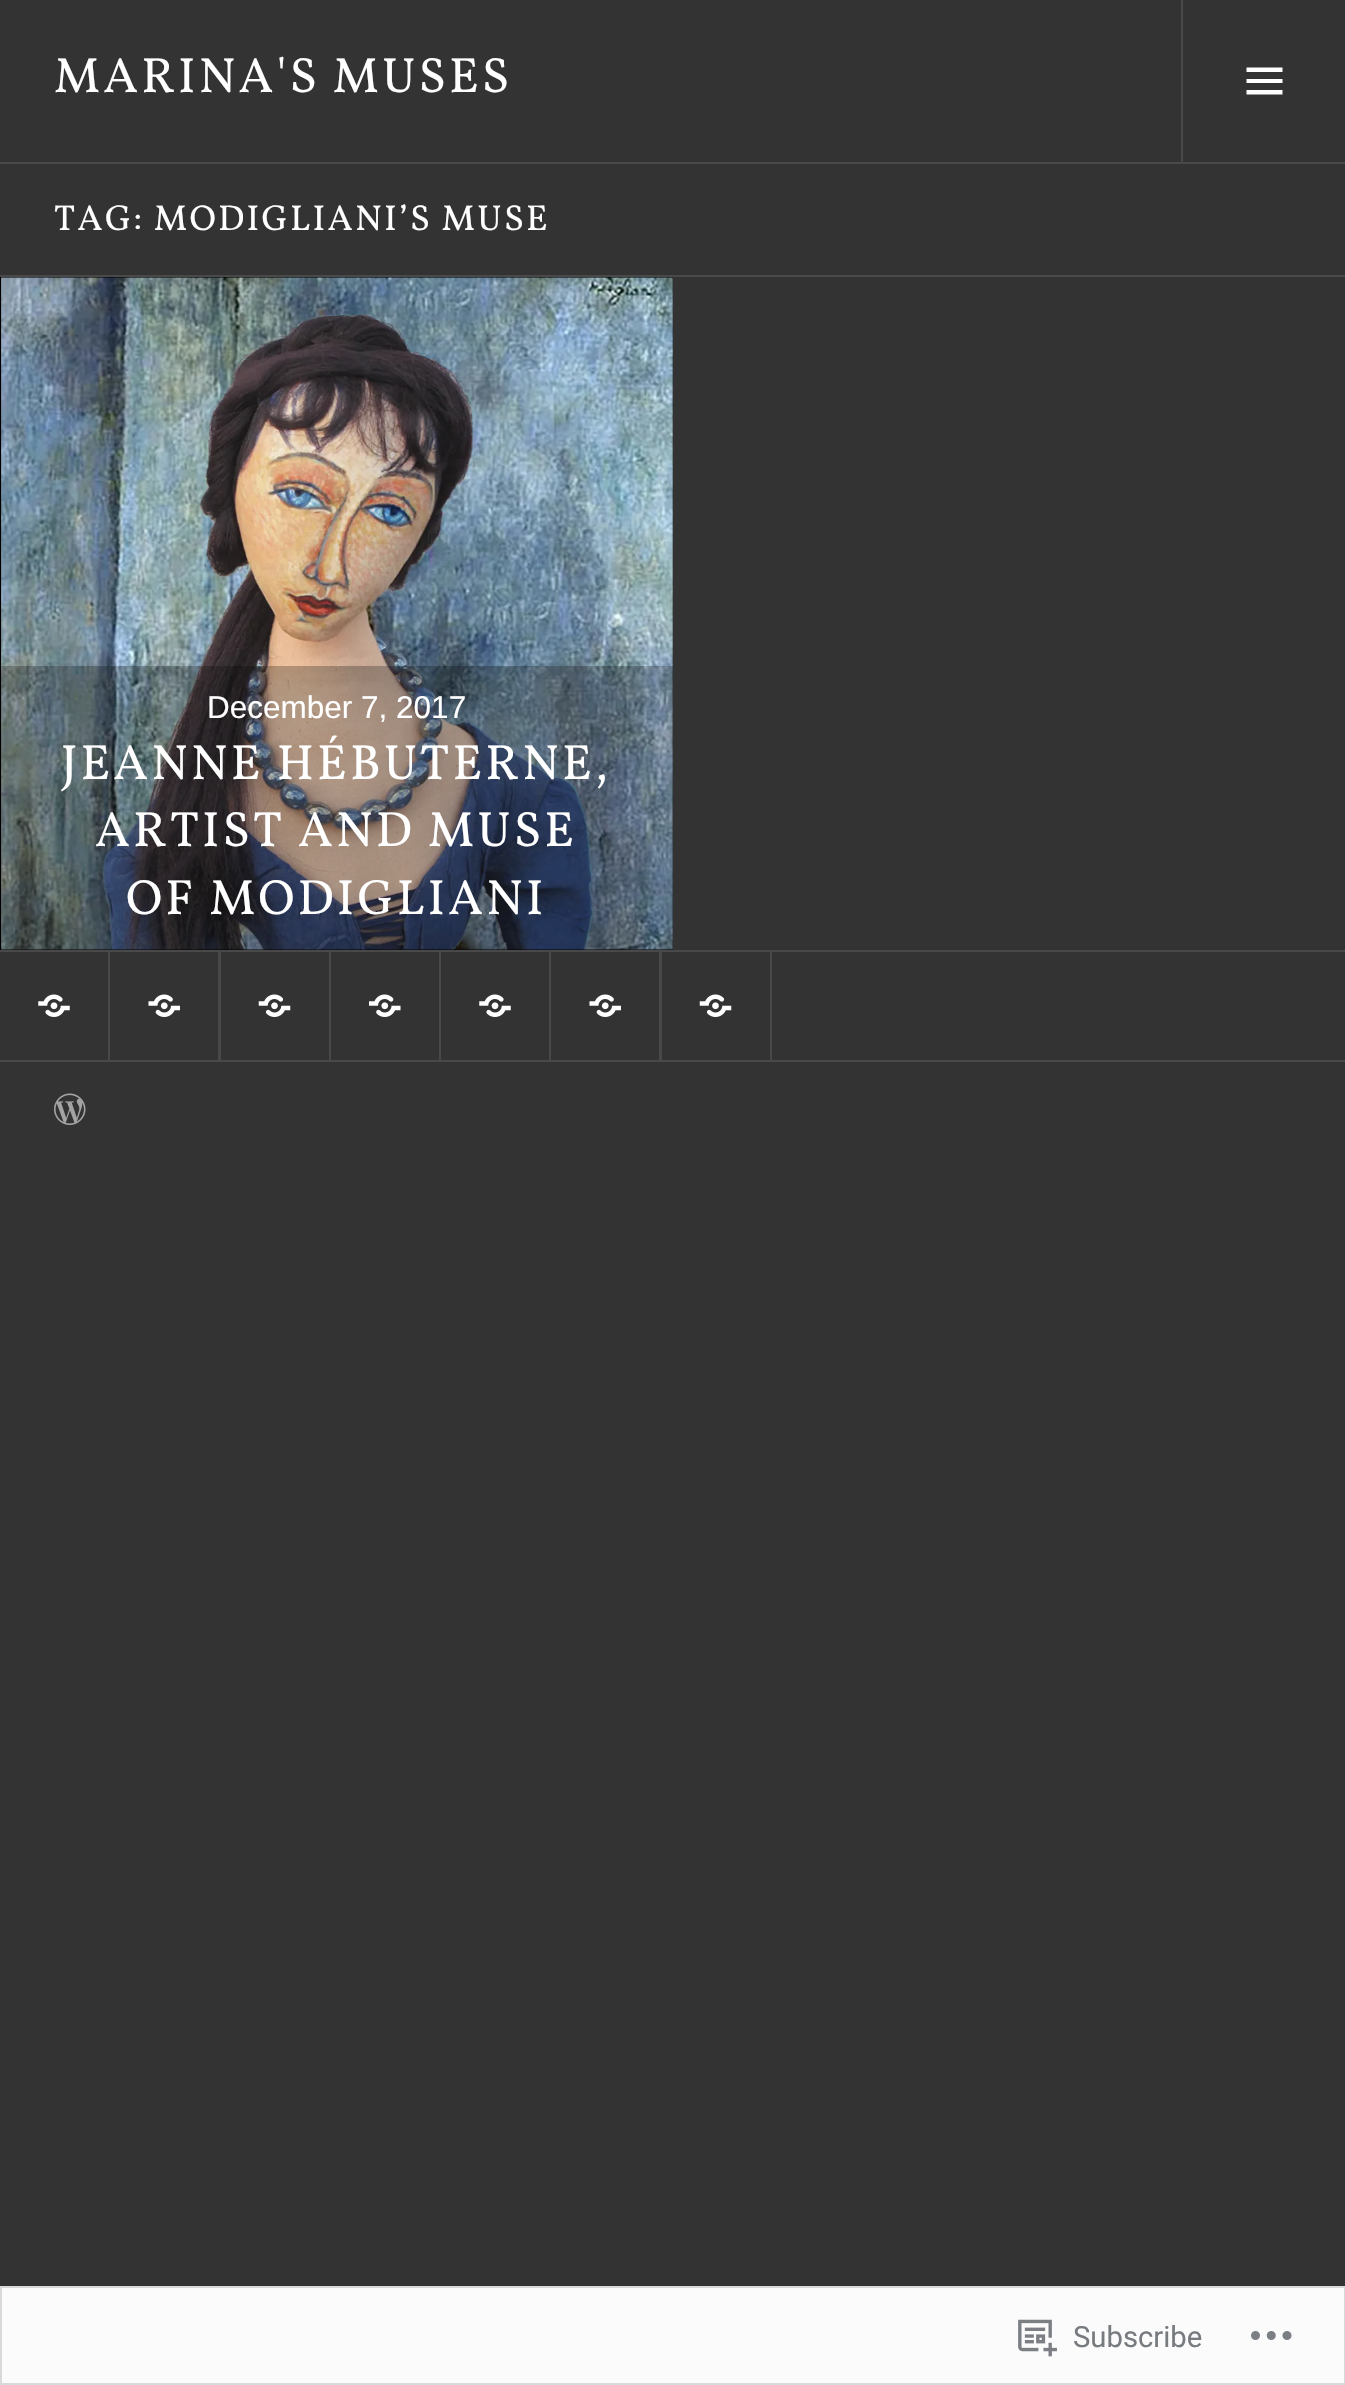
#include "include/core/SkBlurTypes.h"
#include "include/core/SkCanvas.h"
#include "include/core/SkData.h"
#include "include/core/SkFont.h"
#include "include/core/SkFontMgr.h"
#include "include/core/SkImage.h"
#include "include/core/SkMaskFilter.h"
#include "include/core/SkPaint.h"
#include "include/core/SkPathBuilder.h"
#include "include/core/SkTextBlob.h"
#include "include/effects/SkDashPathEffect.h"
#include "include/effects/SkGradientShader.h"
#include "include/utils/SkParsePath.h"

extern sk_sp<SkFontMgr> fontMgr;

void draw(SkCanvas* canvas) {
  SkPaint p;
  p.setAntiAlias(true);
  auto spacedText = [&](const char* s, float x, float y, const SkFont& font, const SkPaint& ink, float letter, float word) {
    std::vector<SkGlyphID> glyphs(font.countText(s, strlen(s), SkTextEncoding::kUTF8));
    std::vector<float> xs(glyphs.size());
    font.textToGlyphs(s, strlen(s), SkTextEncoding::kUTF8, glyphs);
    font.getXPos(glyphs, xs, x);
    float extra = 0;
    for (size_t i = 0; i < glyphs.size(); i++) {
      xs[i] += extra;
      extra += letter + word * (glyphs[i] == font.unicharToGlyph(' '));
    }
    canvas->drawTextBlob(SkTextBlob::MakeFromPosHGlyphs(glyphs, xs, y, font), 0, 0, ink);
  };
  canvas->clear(SkColorSetRGB(51, 51, 51));
  p.setColor(SkColorSetRGB(73, 73, 73));
  canvas->drawRect(SkRect::MakeLTRB(0, 162, 1345, 164), p);
  canvas->drawRect(SkRect::MakeLTRB(1181, 0, 1183, 162), p);
  p.setColor(SK_ColorWHITE);
  canvas->drawPath(SkPathBuilder().moveTo(1246.5f, 94.5f).lineTo(1246.5f, 90).lineTo(1282.5f, 90).lineTo(1282.5f, 94.5f).close().moveTo(1246.5f, 67.5f).lineTo(1282.5f, 67.5f).lineTo(1282.5f, 72).lineTo(1246.5f, 72).close().moveTo(1246.5f, 83).lineTo(1246.5f, 79).lineTo(1282.5f, 79).lineTo(1282.5f, 83).close().detach(), p);
  p.setColor(SkColorSetRGB(73, 73, 73));
  canvas->drawRect(SkRect::MakeLTRB(0, 275, 1345, 277), p);
  p.setColor(SK_ColorBLACK);
  canvas->drawRect(SkRect::MakeLTRB(0, 277, 673, 950), p);
  canvas->drawImageRect(SkImages::DeferredFromEncodedData(SkData::MakeFromFileName("images/1.png")), SkRect::MakeLTRB(1, 277, 673, 950), SkSamplingOptions());
  p.setColor(SkColorSetARGB(64, 0, 0, 0));
  canvas->drawRect(SkRect::MakeLTRB(1, 666, 673, 950), p);
  p.setColor(SkColorSetRGB(73, 73, 73));
  canvas->drawRect(SkRect::MakeLTRB(0, 950, 1345, 952), p);
  canvas->drawImageRect(SkImages::DeferredFromEncodedData(SkData::MakeFromFileName("images/2.png")), SkRect::MakeLTRB(38, 994, 70, 1017), SkSamplingOptions());
  canvas->save();
  canvas->clipRect(SkRect::MakeLTRB(0, 952, 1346, 1168));
  p.setStyle(SkPaint::kStroke_Style);
  p.setStrokeWidth(2);
  canvas->drawRect(SkRect::MakeLTRB(109, 951, 220, 1061), p);
  canvas->restore();
  canvas->drawImageRect(SkImages::DeferredFromEncodedData(SkData::MakeFromFileName("images/3.png")), SkRect::MakeLTRB(148, 994, 180, 1017), SkSamplingOptions());
  canvas->save();
  canvas->clipRect(SkRect::MakeLTRB(0, 952, 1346, 1168));
  canvas->drawRect(SkRect::MakeLTRB(219, 951, 330, 1061), p);
  canvas->restore();
  canvas->drawImageRect(SkImages::DeferredFromEncodedData(SkData::MakeFromFileName("images/4.png")), SkRect::MakeLTRB(258, 994, 291, 1017), SkSamplingOptions());
  canvas->save();
  canvas->clipRect(SkRect::MakeLTRB(0, 952, 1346, 1168));
  canvas->drawRect(SkRect::MakeLTRB(330, 951, 440, 1061), p);
  canvas->restore();
  canvas->drawImageRect(SkImages::DeferredFromEncodedData(SkData::MakeFromFileName("images/5.png")), SkRect::MakeLTRB(369, 994, 401, 1017), SkSamplingOptions());
  canvas->save();
  canvas->clipRect(SkRect::MakeLTRB(0, 952, 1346, 1168));
  canvas->drawRect(SkRect::MakeLTRB(440, 951, 550, 1061), p);
  canvas->restore();
  canvas->drawImageRect(SkImages::DeferredFromEncodedData(SkData::MakeFromFileName("images/2.png")), SkRect::MakeLTRB(479, 994, 511, 1017), SkSamplingOptions());
  canvas->save();
  canvas->clipRect(SkRect::MakeLTRB(0, 952, 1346, 1168));
  canvas->drawRect(SkRect::MakeLTRB(550, 951, 661, 1061), p);
  canvas->restore();
  canvas->drawImageRect(SkImages::DeferredFromEncodedData(SkData::MakeFromFileName("images/3.png")), SkRect::MakeLTRB(589, 994, 621, 1017), SkSamplingOptions());
  canvas->save();
  canvas->clipRect(SkRect::MakeLTRB(0, 952, 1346, 1168));
  canvas->drawRect(SkRect::MakeLTRB(660, 951, 771, 1061), p);
  canvas->restore();
  canvas->drawImageRect(SkImages::DeferredFromEncodedData(SkData::MakeFromFileName("images/4.png")), SkRect::MakeLTRB(699, 994, 732, 1017), SkSamplingOptions());
  p.setStyle(SkPaint::kFill_Style);
  canvas->drawRect(SkRect::MakeLTRB(0, 1060, 1345, 1062), p);
  canvas->drawImageRect(SkImages::DeferredFromEncodedData(SkData::MakeFromFileName("images/6.png")), SkRect::MakeLTRB(54, 1093, 86, 1125), SkSamplingOptions());
  p.setColor(SkColorSetRGB(251, 251, 251));
  canvas->drawRect(SkRect::MakeLTRB(1, 2287, 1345, 2384), p);
  p.setStyle(SkPaint::kStroke_Style);
  p.setColor(SkColorSetRGB(217, 217, 219));
  canvas->drawRect(SkRect::MakeLTRB(1, 2287, 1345, 2384), p);
  canvas->drawImageRect(SkImages::DeferredFromEncodedData(SkData::MakeFromFileName("images/7.png")), SkRect::MakeLTRB(1018, 2319, 1057, 2357), SkSamplingOptions());
  canvas->drawImageRect(SkImages::DeferredFromEncodedData(SkData::MakeFromFileName("images/8.png")), SkRect::MakeLTRB(1251, 2331, 1292, 2340), SkSamplingOptions());
  SkFont font1(fontMgr->matchFamilyStyle("Vollkorn", SkFontStyle::Normal()), 49.5f);
  font1.setSubpixel(true);
  p.setStyle(SkPaint::kFill_Style);
  p.setColor(SK_ColorWHITE);
  spacedText("MARINA'S MUSES", 54, 92, font1, p, 3.1f, 0);
  SkFont font2(fontMgr->matchFamilyStyle("Vollkorn", SkFontStyle::Normal()), 36);
  font2.setSubpixel(true);
  spacedText("TAG: MODIGLIANI’S MUSE", 54, 230, font2, p, 2.25f, 0);
  SkFont font3(fontMgr->matchFamilyStyle("Arimo", SkFontStyle::Normal()), 31.5f);
  font3.setSubpixel(true);
  canvas->drawString("December 7, 2017", 207, 718, font3, p);
  spacedText("JEANNE HÉBUTERNE,", 61, 779, font1, p, 3.1f, 0);
  spacedText("ARTIST AND MUSE", 95, 846, font1, p, 3.1f, 0);
  spacedText("OF MODIGLIANI", 126, 914, font1, p, 3.1f, 0);
  SkFont font4(fontMgr->matchFamilyStyle("Roboto", SkFontStyle::Normal()), 29.25f);
  font4.setSubpixel(true);
  p.setColor(SkColorSetRGB(119, 123, 128));
  canvas->drawString("Subscribe", 1073, 2347, font4, p);
}
